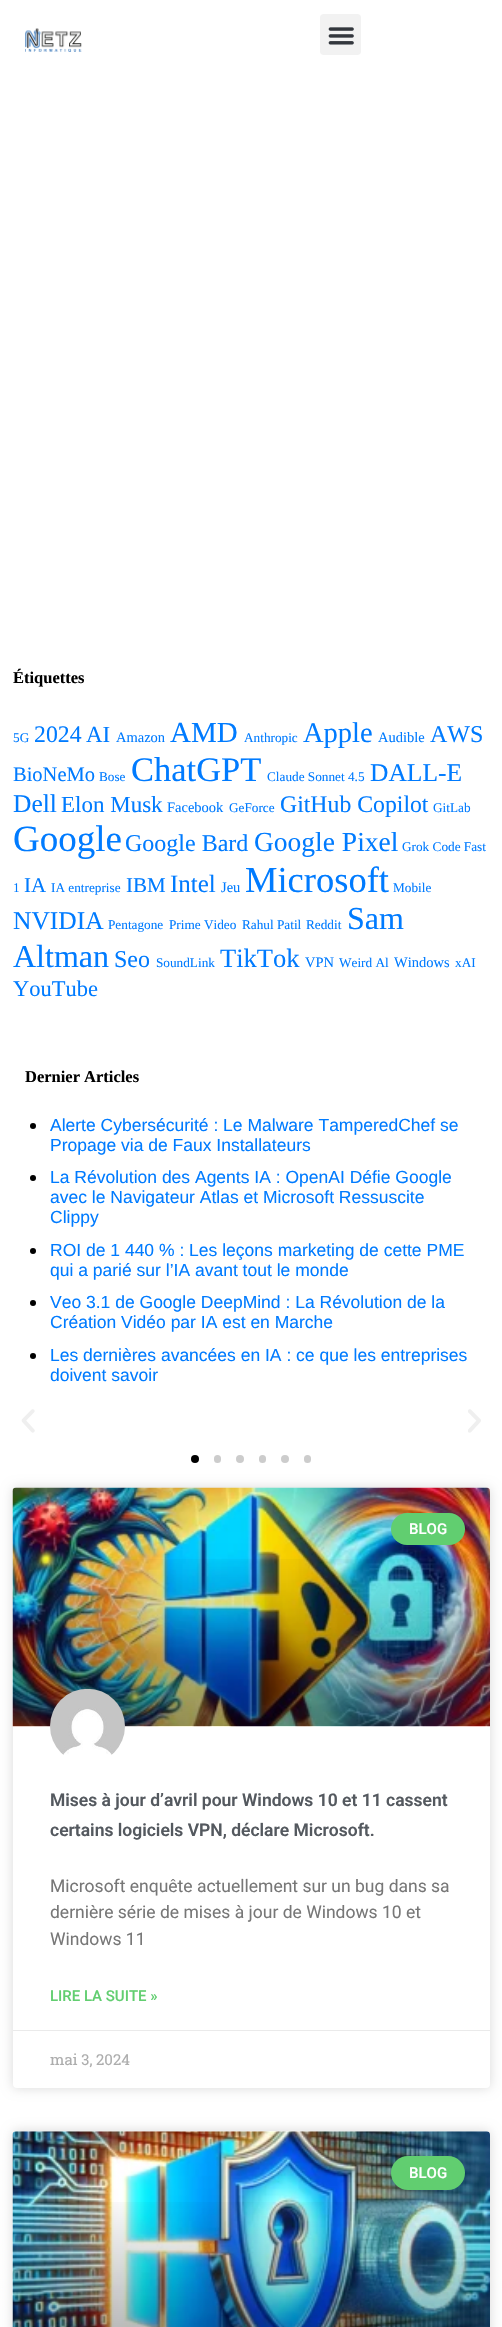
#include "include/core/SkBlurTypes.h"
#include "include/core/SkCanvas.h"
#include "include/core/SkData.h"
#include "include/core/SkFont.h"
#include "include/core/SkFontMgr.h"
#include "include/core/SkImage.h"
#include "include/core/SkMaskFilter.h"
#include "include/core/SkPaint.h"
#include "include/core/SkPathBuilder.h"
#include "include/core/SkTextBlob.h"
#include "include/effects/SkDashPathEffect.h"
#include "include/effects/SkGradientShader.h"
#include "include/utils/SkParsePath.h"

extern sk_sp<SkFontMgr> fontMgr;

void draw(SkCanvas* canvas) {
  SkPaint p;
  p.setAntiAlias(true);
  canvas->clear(SK_ColorWHITE);
  canvas->drawImageRect(SkImages::DeferredFromEncodedData(SkData::MakeFromFileName("images/1.png")), SkRect::MakeLTRB(25, 28, 82, 52), SkSamplingOptions());
  p.setColor(SkColorSetRGB(242, 242, 242));
  canvas->drawRoundRect(SkRect::MakeLTRB(320, 14, 361, 55), 4, 4, p);
  canvas->drawImageRect(SkImages::DeferredFromEncodedData(SkData::MakeFromFileName("images/2.png")), SkRect::MakeLTRB(328, 27, 354, 45), SkSamplingOptions());
  p.setColor(SK_ColorBLACK);
  canvas->drawCircle(33, 1126, 3, p);
  canvas->drawCircle(33, 1178, 3, p);
  canvas->drawCircle(33, 1251, 3, p);
  canvas->drawCircle(33, 1303, 3, p);
  canvas->drawCircle(33, 1356, 3, p);
  canvas->drawImageRect(SkImages::DeferredFromEncodedData(SkData::MakeFromFileName("images/3.png")), SkRect::MakeLTRB(21, 1409, 35, 1433), SkSamplingOptions());
  canvas->drawImageRect(SkImages::DeferredFromEncodedData(SkData::MakeFromFileName("images/4.png")), SkRect::MakeLTRB(468, 1409, 481, 1433), SkSamplingOptions());
  canvas->drawCircle(195, 1459, 4, p);
  p.setColor(SkColorSetRGB(204, 204, 204));
  canvas->drawRoundRect(SkRect::MakeLTRB(214, 1455, 221, 1463), 3.5f, 3.5f, p);
  canvas->drawCircle(240, 1459, 4, p);
  canvas->drawRoundRect(SkRect::MakeLTRB(259, 1455, 266, 1463), 3.5f, 3.5f, p);
  canvas->drawCircle(285, 1459, 4, p);
  canvas->drawRoundRect(SkRect::MakeLTRB(304, 1455, 311, 1463), 3.5f, 3.5f, p);
  p.setColor(SkColorSetARGB(38, 0, 0, 0));
  p.setMaskFilter(SkMaskFilter::MakeBlur(kNormal_SkBlurStyle, 6));
  canvas->drawRoundRect(SkRect::MakeLTRB(13, 1488, 490, 2088), 4, 4, p);
  p.setMaskFilter(nullptr);
  p.setColor(SK_ColorWHITE);
  canvas->drawRoundRect(SkRect::MakeLTRB(13, 1488, 490, 2088), 4, 4, p);
  canvas->drawImageRect(SkImages::DeferredFromEncodedData(SkData::MakeFromFileName("images/5.png")), SkRect::MakeLTRB(12, 1487, 490, 1727), SkSamplingOptions());
  {
    const SkColor colors[] = {SkColorSetARGB(89, 0, 0, 0), SkColorSetARGB(0, 0, 0, 0)};
    const float stops[] = {0, 0.75f};
    const SkPoint ends[] = {{251, 1726}, {251, 1488}};
    p.setShader(SkGradientShader::MakeLinear(ends, colors, stops, 2, SkTileMode::kClamp));
    p.setAlpha(255);
  }
  canvas->drawRect(SkRect::MakeLTRB(13, 1559, 490, 1726), p);
  p.setShader(nullptr);
  p.setColor(SkColorSetRGB(97, 206, 112));
  canvas->drawRoundRect(SkRect::MakeLTRB(391, 1513, 465, 1545), 16, 16, p);
  canvas->drawImageRect(SkImages::DeferredFromEncodedData(SkData::MakeFromFileName("images/6.png")), SkRect::MakeLTRB(50, 1688, 125, 1755), SkSamplingOptions());
  p.setColor(SkColorSetRGB(234, 234, 234));
  canvas->drawRect(SkRect::MakeLTRB(13, 2030, 490, 2031), p);
  p.setColor(SkColorSetARGB(38, 0, 0, 0));
  p.setMaskFilter(SkMaskFilter::MakeBlur(kNormal_SkBlurStyle, 6));
  canvas->drawRoundRect(SkRect::MakeLTRB(13, 2131, 490, 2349), 4, 4, p);
  p.setMaskFilter(nullptr);
  p.setColor(SK_ColorWHITE);
  canvas->drawRoundRect(SkRect::MakeLTRB(13, 2131, 490, 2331), 4, 4, p);
  canvas->drawImageRect(SkImages::DeferredFromEncodedData(SkData::MakeFromFileName("images/7.png")), SkRect::MakeLTRB(12, 2131, 490, 2327), SkSamplingOptions());
  {
    const SkColor colors[] = {SkColorSetARGB(89, 0, 0, 0), SkColorSetARGB(0, 0, 0, 0)};
    const float stops[] = {0, 0.75f};
    const SkPoint ends[] = {{251, 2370}, {251, 2131}};
    p.setShader(SkGradientShader::MakeLinear(ends, colors, stops, 2, SkTileMode::kClamp));
    p.setAlpha(255);
  }
  canvas->drawRect(SkRect::MakeLTRB(13, 2202, 490, 2327), p);
  p.setShader(nullptr);
  p.setColor(SkColorSetRGB(97, 206, 112));
  canvas->drawRoundRect(SkRect::MakeLTRB(391, 2156, 465, 2190), 17, 17, p);
  SkFont font1(fontMgr->matchFamilyStyle("Liberation Serif", SkFontStyle::Bold()), 16.5f);
  font1.setSubpixel(true);
  p.setColor(SK_ColorBLACK);
  canvas->drawString("Étiquettes", 13, 683, font1, p);
  SkFont font2(fontMgr->matchFamilyStyle("Liberation Serif", SkFontStyle::Normal()), 13.25f);
  font2.setSubpixel(true);
  p.setColor(SkColorSetRGB(0, 123, 255));
  canvas->drawString("5G", 13, 742, font2, p);
  SkFont font3(fontMgr->matchFamilyStyle("Liberation Serif", SkFontStyle::Normal()), 23.75f);
  font3.setSubpixel(true);
  canvas->drawString("2024", 34, 742, font3, p);
  SkFont font4(fontMgr->matchFamilyStyle("Liberation Serif", SkFontStyle::Normal()), 23);
  font4.setSubpixel(true);
  canvas->drawString("AI", 86, 742, font4, p);
  SkFont font5(fontMgr->matchFamilyStyle("Liberation Serif", SkFontStyle::Normal()), 14.5f);
  font5.setSubpixel(true);
  canvas->drawString("Amazon", 116, 742, font5, p);
  SkFont font6(fontMgr->matchFamilyStyle("Liberation Serif", SkFontStyle::Normal()), 29);
  font6.setSubpixel(true);
  canvas->drawString("AMD", 170, 742, font6, p);
  canvas->drawString("Anthropic", 244, 742, font2, p);
  SkFont font7(fontMgr->matchFamilyStyle("Liberation Serif", SkFontStyle::Normal()), 28.5f);
  font7.setSubpixel(true);
  canvas->drawString("Apple", 303, 742, font7, p);
  canvas->drawString("Audible", 378, 742, font5, p);
  SkFont font8(fontMgr->matchFamilyStyle("Liberation Serif", SkFontStyle::Normal()), 24);
  font8.setSubpixel(true);
  canvas->drawString("AWS", 430, 742, font8, p);
  SkFont font9(fontMgr->matchFamilyStyle("Liberation Serif", SkFontStyle::Normal()), 20.5f);
  font9.setSubpixel(true);
  canvas->drawString("BioNeMo", 13, 781, font9, p);
  canvas->drawString("Bose", 99, 781, font2, p);
  SkFont font10(fontMgr->matchFamilyStyle("Liberation Serif", SkFontStyle::Normal()), 34.5f);
  font10.setSubpixel(true);
  canvas->drawString("ChatGPT", 131, 781, font10, p);
  canvas->drawString("Claude Sonnet 4.5", 267, 781, font2, p);
  SkFont font11(fontMgr->matchFamilyStyle("Liberation Serif", SkFontStyle::Normal()), 25.5f);
  font11.setSubpixel(true);
  canvas->drawString("DALL-E", 370, 781, font11, p);
  canvas->drawString("Dell", 13, 812, font11, p);
  canvas->drawString("Elon Musk", 61, 812, font4, p);
  canvas->drawString("Facebook", 167, 812, font5, p);
  canvas->drawString("GeForce", 229, 812, font2, p);
  canvas->drawString("GitHub Copilot", 280, 812, font3, p);
  canvas->drawString("GitLab", 433, 812, font2, p);
  SkFont font12(fontMgr->matchFamilyStyle("Liberation Serif", SkFontStyle::Normal()), 37);
  font12.setSubpixel(true);
  canvas->drawString("Google", 13, 851, font12, p);
  canvas->drawString("Google Bard", 125, 851, font8, p);
  SkFont font13(fontMgr->matchFamilyStyle("Liberation Serif", SkFontStyle::Normal()), 27.5f);
  font13.setSubpixel(true);
  canvas->drawString("Google Pixel", 254, 851, font13, p);
  canvas->drawString("Grok Code Fast", 402, 851, font2, p);
  canvas->drawString("1", 13, 892, font2, p);
  SkFont font14(fontMgr->matchFamilyStyle("Liberation Serif", SkFontStyle::Normal()), 21);
  font14.setSubpixel(true);
  canvas->drawString("IA", 24, 892, font14, p);
  canvas->drawString("IA entreprise", 51, 892, font2, p);
  canvas->drawString("IBM", 126, 892, font14, p);
  SkFont font15(fontMgr->matchFamilyStyle("Liberation Serif", SkFontStyle::Normal()), 25);
  font15.setSubpixel(true);
  canvas->drawString("Intel", 170, 892, font15, p);
  canvas->drawString("Jeu", 221, 892, font5, p);
  SkFont font16(fontMgr->matchFamilyStyle("Liberation Serif", SkFontStyle::Normal()), 36.5f);
  font16.setSubpixel(true);
  canvas->drawString("Microsoft", 245, 892, font16, p);
  canvas->drawString("Mobile", 393, 892, font2, p);
  canvas->drawString("NVIDIA", 13, 929, font11, p);
  canvas->drawString("Pentagone", 108, 929, font2, p);
  canvas->drawString("Prime Video", 169, 929, font2, p);
  canvas->drawString("Rahul Patil", 242, 929, font2, p);
  canvas->drawString("Reddit", 306, 929, font2, p);
  SkFont font17(fontMgr->matchFamilyStyle("Liberation Serif", SkFontStyle::Normal()), 32);
  font17.setSubpixel(true);
  canvas->drawString("Sam", 347, 929, font17, p);
  canvas->drawString("Altman", 13, 967, font17, p);
  canvas->drawString("Seo", 114, 967, font8, p);
  canvas->drawString("SoundLink", 156, 967, font2, p);
  SkFont font18(fontMgr->matchFamilyStyle("Liberation Serif", SkFontStyle::Normal()), 26.5f);
  font18.setSubpixel(true);
  canvas->drawString("TikTok", 220, 967, font18, p);
  canvas->drawString("VPN", 305, 967, font5, p);
  canvas->drawString("Weird Al", 339, 967, font2, p);
  canvas->drawString("Windows", 394, 967, font5, p);
  canvas->drawString("xAI", 455, 967, font2, p);
  SkFont font19(fontMgr->matchFamilyStyle("Liberation Serif", SkFontStyle::Normal()), 22.5f);
  font19.setSubpixel(true);
  canvas->drawString("YouTube", 13, 996, font19, p);
  p.setColor(SK_ColorBLACK);
  canvas->drawString("Dernier Articles", 25, 1082, font1, p);
  SkFont font20(fontMgr->matchFamilyStyle("Liberation Sans", SkFontStyle::Normal()), 17.5f);
  font20.setSubpixel(true);
  p.setColor(SkColorSetRGB(0, 123, 255));
  canvas->drawString("Alerte Cybersécurité : Le Malware TamperedChef se", 50, 1131, font20, p);
  canvas->drawString("Propage via de Faux Installateurs", 50, 1151, font20, p);
  canvas->drawString("La Révolution des Agents IA : OpenAI Défie Google", 50, 1183, font20, p);
  canvas->drawString("avec le Navigateur Atlas et Microsoft Ressuscite", 50, 1203, font20, p);
  canvas->drawString("Clippy", 50, 1223, font20, p);
  canvas->drawString("ROI de 1 440 % : Les leçons marketing de cette PME", 50, 1256, font20, p);
  canvas->drawString("qui a parié sur l’IA avant tout le monde", 50, 1276, font20, p);
  canvas->drawString("Veo 3.1 de Google DeepMind : La Révolution de la", 50, 1308, font20, p);
  canvas->drawString("Création Vidéo par IA est en Marche", 50, 1328, font20, p);
  canvas->drawString("Les dernières avancées en IA : ce que les entreprises", 50, 1361, font20, p);
  canvas->drawString("doivent savoir", 50, 1381, font20, p);
  SkFont font21(fontMgr->matchFamilyStyle("Roboto", SkFontStyle(500, SkFontStyle::kNormal_Width, SkFontStyle::kUpright_Slant)), 15);
  font21.setSubpixel(true);
  p.setColor(SK_ColorWHITE);
  canvas->drawString("BLOG", 409, 1534, font21, p);
  SkFont font22(fontMgr->matchFamilyStyle("Roboto", SkFontStyle(600, SkFontStyle::kNormal_Width, SkFontStyle::kUpright_Slant)), 17.5f);
  font22.setSubpixel(true);
  p.setColor(SkColorSetRGB(84, 89, 95));
  canvas->drawString("Mises à jour d’avril pour Windows 10 et 11 cassent", 50, 1806, font22, p);
  canvas->drawString("certains logiciels VPN, déclare Microsoft.", 50, 1836, font22, p);
  SkFont font23(fontMgr->matchFamilyStyle("Roboto", SkFontStyle::Normal()), 17.5f);
  font23.setSubpixel(true);
  p.setColor(SkColorSetRGB(119, 119, 119));
  canvas->drawString("Microsoft enquête actuellement sur un bug dans sa", 50, 1892, font23, p);
  canvas->drawString("dernière série de mises à jour de Windows 10 et", 50, 1918, font23, p);
  canvas->drawString("Windows 11", 50, 1945, font23, p);
  p.setColor(SkColorSetRGB(97, 206, 112));
  canvas->drawString("LIRE LA SUITE »", 50, 2001, font21, p);
  SkFont font24(fontMgr->matchFamilyStyle("Roboto Slab", SkFontStyle::Normal()), 15);
  font24.setSubpixel(true);
  p.setColor(SkColorSetRGB(173, 173, 173));
  canvas->drawString("mai 3, 2024", 50, 2065, font24, p);
  p.setColor(SK_ColorWHITE);
  canvas->drawString("BLOG", 409, 2178, font21, p);
}
